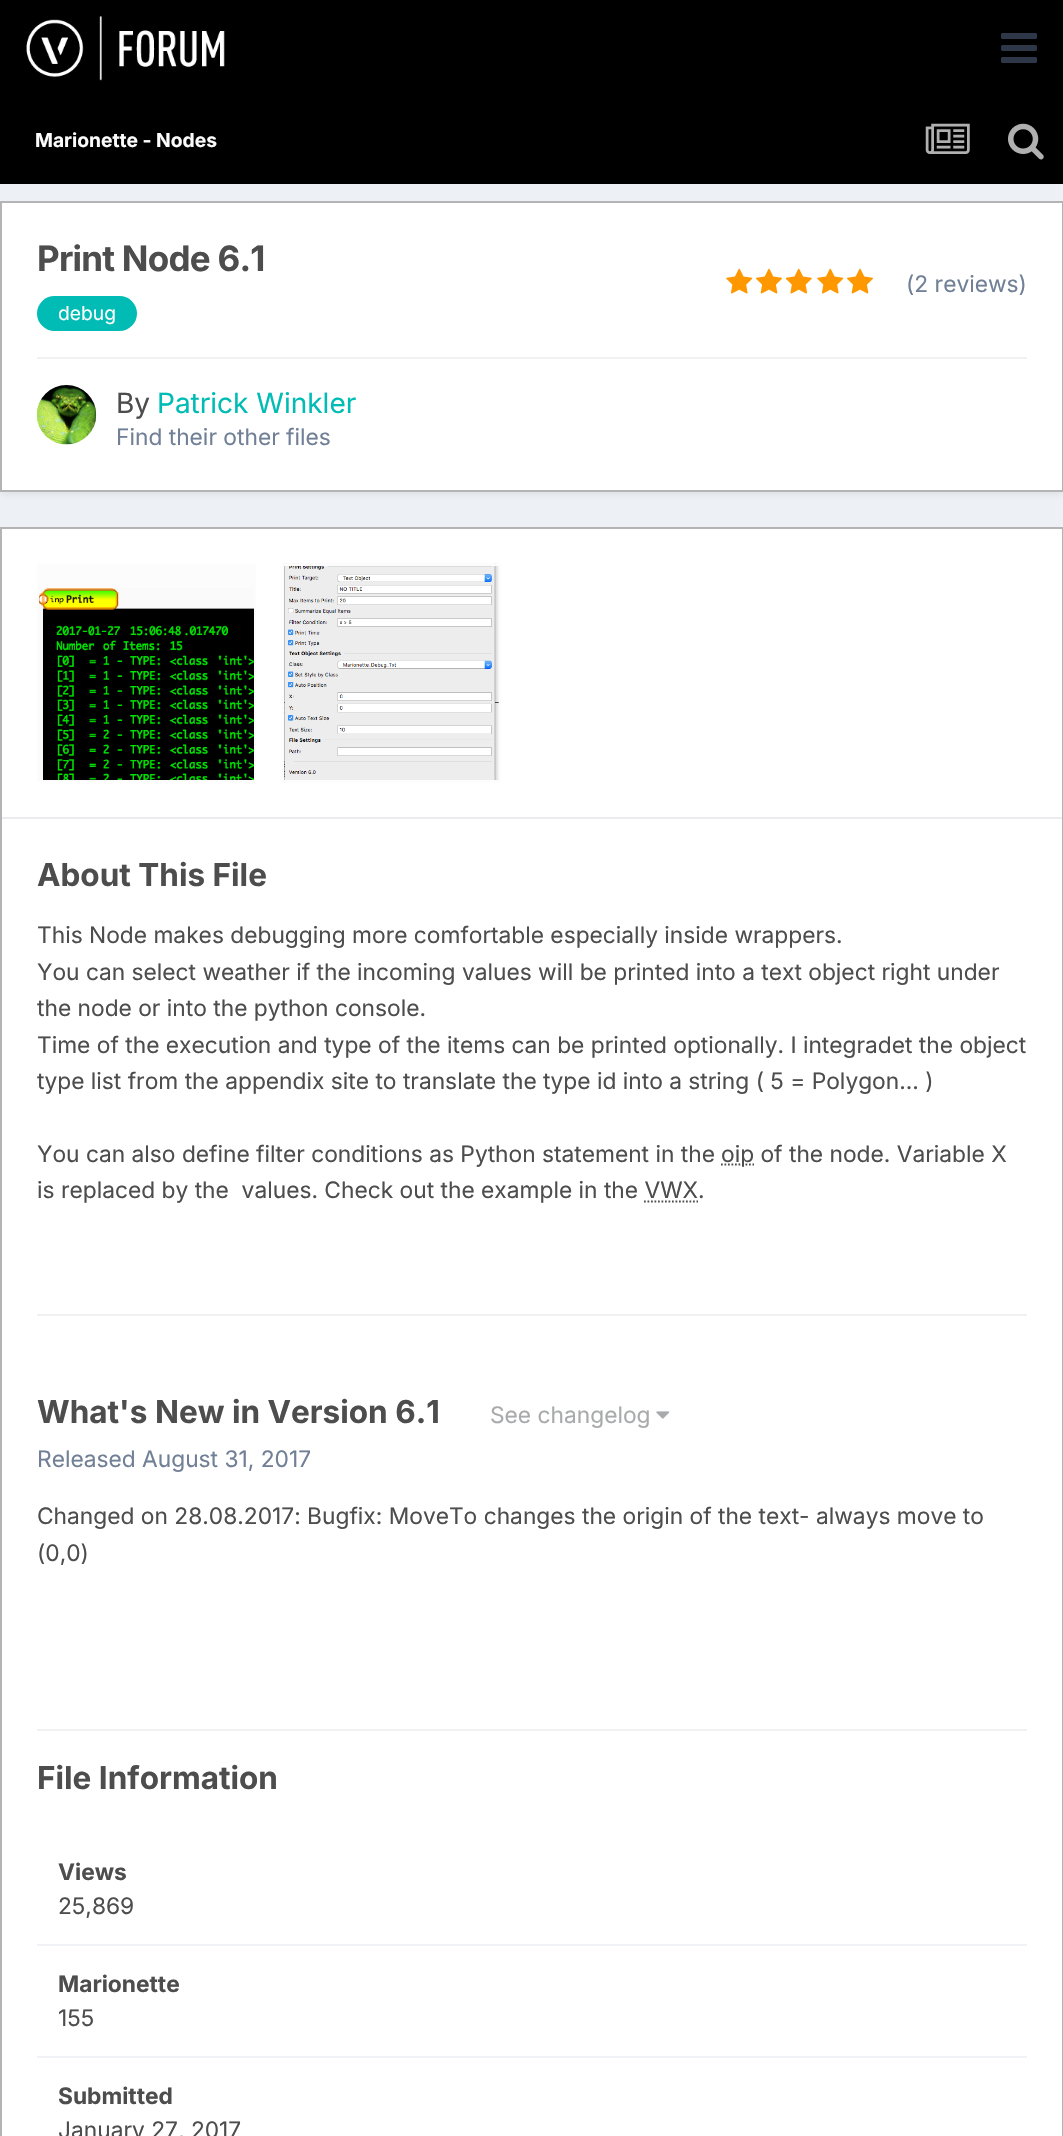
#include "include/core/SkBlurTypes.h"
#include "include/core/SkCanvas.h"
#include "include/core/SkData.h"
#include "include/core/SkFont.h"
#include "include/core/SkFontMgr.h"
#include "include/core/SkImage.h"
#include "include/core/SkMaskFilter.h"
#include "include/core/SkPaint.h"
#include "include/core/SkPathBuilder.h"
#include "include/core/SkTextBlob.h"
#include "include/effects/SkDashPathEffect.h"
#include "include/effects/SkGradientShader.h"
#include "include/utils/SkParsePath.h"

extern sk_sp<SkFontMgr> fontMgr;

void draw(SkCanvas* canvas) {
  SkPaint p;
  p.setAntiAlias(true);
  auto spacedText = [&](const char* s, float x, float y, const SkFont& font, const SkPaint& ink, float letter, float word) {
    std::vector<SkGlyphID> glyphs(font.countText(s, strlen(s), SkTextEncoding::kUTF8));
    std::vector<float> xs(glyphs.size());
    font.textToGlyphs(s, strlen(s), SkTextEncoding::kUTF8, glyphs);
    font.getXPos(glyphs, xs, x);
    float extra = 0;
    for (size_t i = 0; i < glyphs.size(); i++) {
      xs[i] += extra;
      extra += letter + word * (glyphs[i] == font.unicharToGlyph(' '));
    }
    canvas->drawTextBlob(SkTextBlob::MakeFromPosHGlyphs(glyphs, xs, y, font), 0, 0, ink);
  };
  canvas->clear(SkColorSetRGB(237, 240, 244));
  p.setColor(SK_ColorBLACK);
  canvas->drawRect(SkRect::MakeLTRB(0, 0, 1063, 184), p);
  canvas->drawImageRect(SkImages::DeferredFromEncodedData(SkData::MakeFromFileName("images/1.png")), SkRect::MakeLTRB(26, 16, 225, 81), SkSamplingOptions());
  canvas->drawImageRect(SkImages::DeferredFromEncodedData(SkData::MakeFromFileName("images/2.png")), SkRect::MakeLTRB(1001, 33, 1037, 63), SkSamplingOptions());
  canvas->drawImageRect(SkImages::DeferredFromEncodedData(SkData::MakeFromFileName("images/3.png")), SkRect::MakeLTRB(925, 123, 970, 154), SkSamplingOptions());
  canvas->drawImageRect(SkImages::DeferredFromEncodedData(SkData::MakeFromFileName("images/4.png")), SkRect::MakeLTRB(1008, 123, 1044, 160), SkSamplingOptions());
  p.setColor(SkColorSetARGB(26, 59, 59, 59));
  p.setMaskFilter(SkMaskFilter::MakeBlur(kNormal_SkBlurStyle, 3.5f));
  canvas->drawRect(SkRect::MakeLTRB(2, 207, 1062, 494), p);
  p.setMaskFilter(nullptr);
  p.setColor(SK_ColorWHITE);
  canvas->drawRect(SkRect::MakeLTRB(1, 202, 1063, 491), p);
  p.setStyle(SkPaint::kStroke_Style);
  p.setStrokeWidth(2);
  p.setColor(SkColorSetRGB(180, 180, 180));
  canvas->drawRect(SkRect::MakeLTRB(1, 202, 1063, 491), p);
  p.setStyle(SkPaint::kFill_Style);
  p.setColor(SkColorSetRGB(0, 188, 180));
  canvas->drawRoundRect(SkRect::MakeLTRB(37, 296, 137, 331), 17.5f, 17.5f, p);
  canvas->drawImageRect(SkImages::DeferredFromEncodedData(SkData::MakeFromFileName("images/5.png")), SkRect::MakeLTRB(726, 268, 753, 294), SkSamplingOptions());
  canvas->drawImageRect(SkImages::DeferredFromEncodedData(SkData::MakeFromFileName("images/6.png")), SkRect::MakeLTRB(756, 268, 782, 294), SkSamplingOptions());
  canvas->drawImageRect(SkImages::DeferredFromEncodedData(SkData::MakeFromFileName("images/7.png")), SkRect::MakeLTRB(785, 268, 812, 294), SkSamplingOptions());
  canvas->drawImageRect(SkImages::DeferredFromEncodedData(SkData::MakeFromFileName("images/5.png")), SkRect::MakeLTRB(817, 268, 844, 294), SkSamplingOptions());
  canvas->drawImageRect(SkImages::DeferredFromEncodedData(SkData::MakeFromFileName("images/6.png")), SkRect::MakeLTRB(847, 268, 873, 294), SkSamplingOptions());
  p.setColor(SkColorSetRGB(241, 241, 241));
  canvas->drawRect(SkRect::MakeLTRB(37, 357, 1027, 359), p);
  canvas->drawImageRect(SkImages::DeferredFromEncodedData(SkData::MakeFromFileName("images/8.png")), SkRect::MakeLTRB(36, 385, 97, 445), SkSamplingOptions());
  p.setColor(SK_ColorWHITE);
  canvas->drawRect(SkRect::MakeLTRB(1, 528, 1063, 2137), p);
  p.setStyle(SkPaint::kStroke_Style);
  p.setColor(SkColorSetRGB(180, 180, 180));
  canvas->drawRect(SkRect::MakeLTRB(1, 528, 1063, 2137), p);
  p.setStyle(SkPaint::kFill_Style);
  p.setColor(SkColorSetRGB(234, 236, 239));
  canvas->drawRect(SkRect::MakeLTRB(2, 817, 1062, 819), p);
  p.setColor(SkColorSetRGB(252, 252, 252));
  canvas->drawRect(SkRect::MakeLTRB(39, 566, 254, 588), p);
  canvas->drawImageRect(SkImages::DeferredFromEncodedData(SkData::MakeFromFileName("images/9.png")), SkRect::MakeLTRB(36, 588, 254, 781), SkSamplingOptions());
  p.setStyle(SkPaint::kStroke_Style);
  canvas->drawRect(SkRect::MakeLTRB(38, 565, 255, 781), p);
  canvas->drawImageRect(SkImages::DeferredFromEncodedData(SkData::MakeFromFileName("images/10.png")), SkRect::MakeLTRB(283, 563, 499, 783), SkSamplingOptions());
  canvas->drawRect(SkRect::MakeLTRB(283, 565, 500, 781), p);
  p.setStrokeWidth(1.8f);
  p.setColor(SkColorSetRGB(77, 77, 77));
  p.setPathEffect(SkDashPathEffect::Make({{1.75f, 1.75f}}, 0));
  canvas->drawPath(SkPathBuilder().moveTo(721, 1164.5f).lineTo(754, 1164.5f).detach(), p);
  p.setPathEffect(nullptr);
  p.setPathEffect(SkDashPathEffect::Make({{1.75f, 1.75f}}, 0));
  canvas->drawPath(SkPathBuilder().moveTo(644, 1201.5f).lineTo(698, 1201.5f).detach(), p);
  p.setPathEffect(nullptr);
  p.setStyle(SkPaint::kFill_Style);
  p.setColor(SkColorSetRGB(241, 241, 241));
  canvas->drawRect(SkRect::MakeLTRB(37, 1314, 1027, 1316), p);
  canvas->drawImageRect(SkImages::DeferredFromEncodedData(SkData::MakeFromFileName("images/11.png")), SkRect::MakeLTRB(656, 1411, 670, 1419), SkSamplingOptions());
  canvas->drawRect(SkRect::MakeLTRB(37, 1729, 1027, 1731), p);
  p.setColor(SkColorSetRGB(241, 242, 245));
  canvas->drawRect(SkRect::MakeLTRB(37, 1944, 1027, 1946), p);
  canvas->drawRect(SkRect::MakeLTRB(37, 2056, 1027, 2058), p);
  SkFont font1(fontMgr->matchFamilyStyle("Inter", SkFontStyle::Bold()), 19.25f);
  font1.setSubpixel(true);
  p.setColor(SkColorSetRGB(252, 252, 252));
  canvas->drawString("Marionette - Nodes", 35, 147, font1, p);
  SkFont font2(fontMgr->matchFamilyStyle("Inter", SkFontStyle::Bold()), 35);
  font2.setSubpixel(true);
  p.setColor(SkColorSetRGB(77, 77, 77));
  spacedText("Print Node 6.1", 37, 271, font2, p, -0.75f, 0);
  SkFont font3(fontMgr->matchFamilyStyle("Inter", SkFontStyle::Normal()), 19.25f);
  font3.setSubpixel(true);
  p.setColor(SkColorSetRGB(252, 252, 252));
  canvas->drawString("debug", 58, 320, font3, p);
  SkFont font4(fontMgr->matchFamilyStyle("Inter", SkFontStyle::Normal()), 22.75f);
  font4.setSubpixel(true);
  p.setColor(SkColorSetRGB(113, 128, 150));
  canvas->drawString("(2 reviews)", 906, 292, font4, p);
  SkFont font5(fontMgr->matchFamilyStyle("Inter", SkFontStyle::Normal()), 28);
  font5.setSubpixel(true);
  p.setColor(SkColorSetRGB(77, 77, 77));
  canvas->drawString("By", 116, 413, font5, p);
  p.setColor(SkColorSetRGB(0, 188, 180));
  canvas->drawString("Patrick Winkler", 157, 413, font5, p);
  p.setColor(SkColorSetRGB(113, 128, 150));
  canvas->drawString("Find their other files", 116, 445, font4, p);
  SkFont font6(fontMgr->matchFamilyStyle("Inter", SkFontStyle::Bold()), 31.5f);
  font6.setSubpixel(true);
  p.setColor(SkColorSetRGB(77, 77, 77));
  canvas->drawString("About This File", 37, 886, font6, p);
  canvas->drawString("This Node makes debugging more comfortable especially inside wrappers.", 37, 943, font4, p);
  canvas->drawString("You can select weather if the incoming values will be printed into a text object right under", 37, 980, font4, p);
  canvas->drawString("the node or into the python console.", 37, 1016, font4, p);
  canvas->drawString("Time of the execution and type of the items can be printed optionally. I integradet the object", 37, 1053, font4, p);
  canvas->drawString("type list from the appendix site to translate the type id into a string ( 5 = Polygon... )", 37, 1089, font4, p);
  canvas->drawString("You can also define filter conditions as Python statement in the", 37, 1162, font4, p);
  canvas->drawString("oip of the node. Variable X", 721, 1162, font4, p);
  canvas->drawString("is replaced by the  values. Check out the example in the VWX.", 37, 1198, font4, p);
  canvas->drawString("What's New in Version 6.1", 37, 1423, font6, p);
  p.setColor(SkColorSetRGB(169, 170, 171));
  canvas->drawString("See changelog", 490, 1423, font4, p);
  p.setColor(SkColorSetRGB(113, 128, 150));
  canvas->drawString("Released August 31, 2017", 37, 1467, font4, p);
  p.setColor(SkColorSetRGB(77, 77, 77));
  canvas->drawString("Changed on 28.08.2017: Bugfix: MoveTo changes the origin of the text- always move to", 37, 1524, font4, p);
  canvas->drawString("(0,0)", 37, 1561, font4, p);
  canvas->drawString("File Information", 37, 1789, font6, p);
  SkFont font7(fontMgr->matchFamilyStyle("Inter", SkFontStyle::Bold()), 22.75f);
  font7.setSubpixel(true);
  canvas->drawString("Views", 58, 1880, font7, p);
  canvas->drawString("25,869", 58, 1914, font4, p);
  canvas->drawString("Marionette", 58, 1992, font7, p);
  canvas->drawString("155", 58, 2026, font4, p);
  canvas->drawString("Submitted", 58, 2104, font7, p);
  canvas->drawString("January 27, 2017", 58, 2138, font4, p);
}
